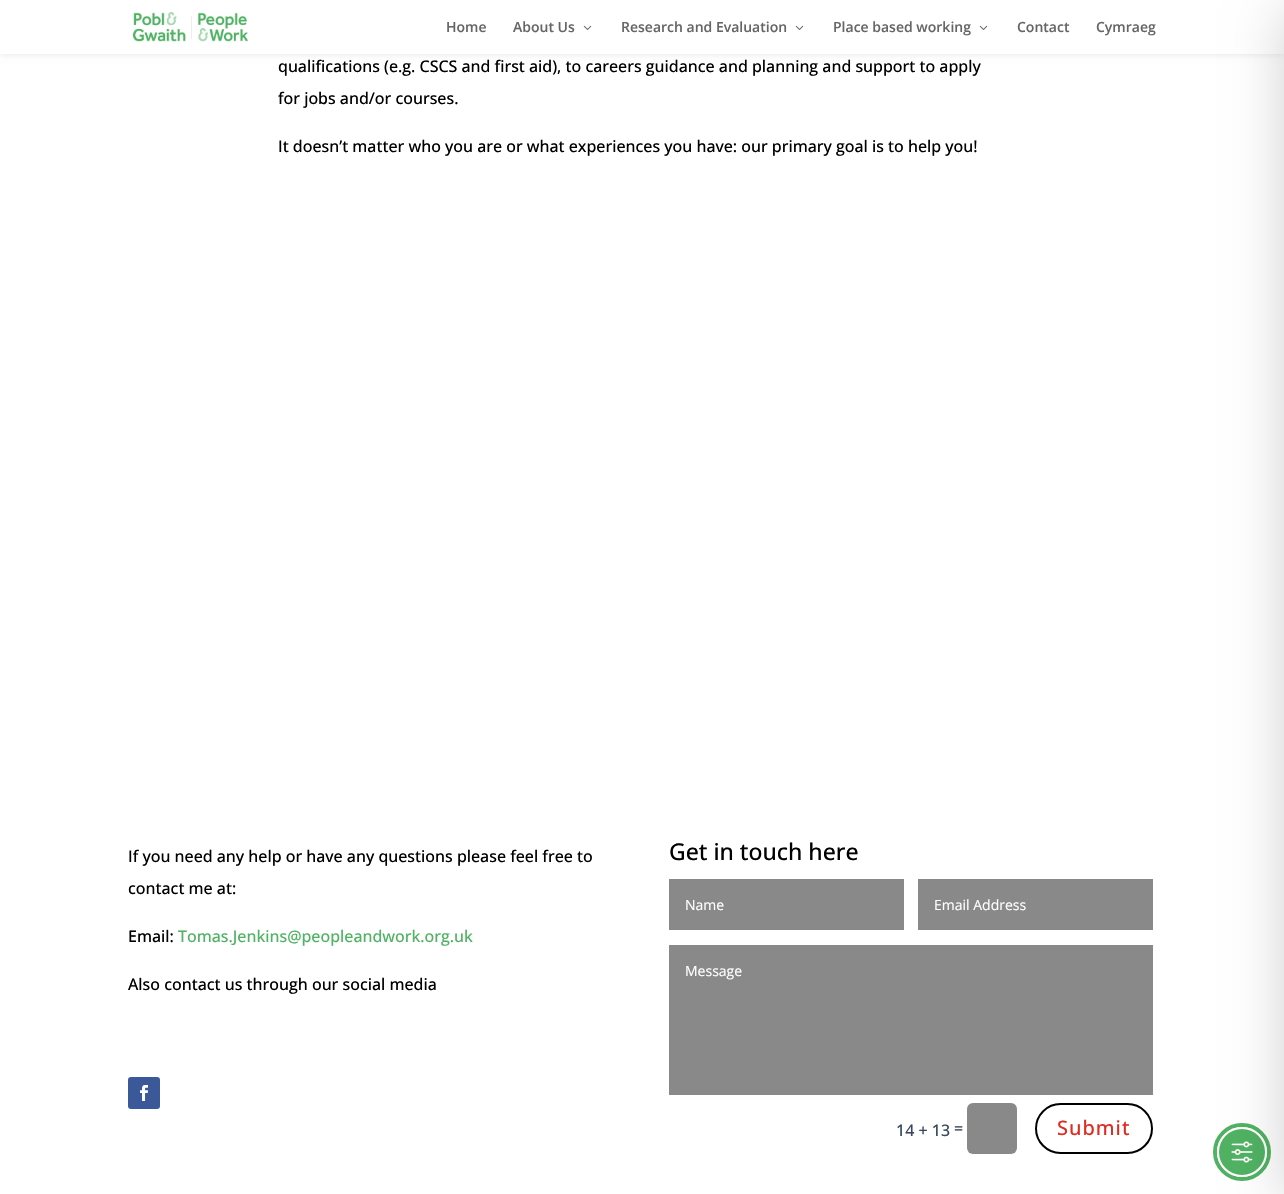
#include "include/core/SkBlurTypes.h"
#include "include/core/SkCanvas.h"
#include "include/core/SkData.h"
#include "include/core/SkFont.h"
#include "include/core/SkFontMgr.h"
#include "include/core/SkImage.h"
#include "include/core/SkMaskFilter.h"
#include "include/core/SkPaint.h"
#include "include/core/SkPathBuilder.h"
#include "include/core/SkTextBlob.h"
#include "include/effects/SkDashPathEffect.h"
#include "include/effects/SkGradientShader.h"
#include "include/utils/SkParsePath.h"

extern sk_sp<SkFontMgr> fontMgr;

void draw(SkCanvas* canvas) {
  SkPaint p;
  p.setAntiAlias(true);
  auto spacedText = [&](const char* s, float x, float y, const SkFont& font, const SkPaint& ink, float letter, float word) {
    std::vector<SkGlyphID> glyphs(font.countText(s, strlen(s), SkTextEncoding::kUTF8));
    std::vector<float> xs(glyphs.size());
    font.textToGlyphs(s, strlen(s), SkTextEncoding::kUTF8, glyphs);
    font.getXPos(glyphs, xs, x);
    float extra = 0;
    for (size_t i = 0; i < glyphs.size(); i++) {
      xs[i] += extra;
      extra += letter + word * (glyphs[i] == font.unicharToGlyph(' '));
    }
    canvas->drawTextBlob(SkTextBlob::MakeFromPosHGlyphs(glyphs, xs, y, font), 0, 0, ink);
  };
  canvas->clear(SK_ColorWHITE);
  p.setColor(SkColorSetARGB(26, 0, 0, 0));
  p.setMaskFilter(SkMaskFilter::MakeBlur(kNormal_SkBlurStyle, 3.5f));
  canvas->drawRect(SkRect::MakeLTRB(0, 0, 1284, 54), p);
  p.setMaskFilter(nullptr);
  p.setColor(SK_ColorWHITE);
  canvas->drawRect(SkRect::MakeLTRB(0, 0, 1284, 54), p);
  canvas->drawImageRect(SkImages::DeferredFromEncodedData(SkData::MakeFromFileName("images/1.png")), SkRect::MakeLTRB(133, 12, 249, 42), SkSamplingOptions());
  canvas->drawImageRect(SkImages::DeferredFromEncodedData(SkData::MakeFromFileName("images/2.png")), SkRect::MakeLTRB(583, 25, 592, 30), SkSamplingOptions());
  canvas->drawImageRect(SkImages::DeferredFromEncodedData(SkData::MakeFromFileName("images/2.png")), SkRect::MakeLTRB(795, 25, 804, 30), SkSamplingOptions());
  canvas->drawImageRect(SkImages::DeferredFromEncodedData(SkData::MakeFromFileName("images/2.png")), SkRect::MakeLTRB(979, 25, 988, 30), SkSamplingOptions());
  p.setColor(SkColorSetRGB(59, 89, 152));
  canvas->drawRoundRect(SkRect::MakeLTRB(128, 1077, 160, 1109), 3, 3, p);
  canvas->drawImageRect(SkImages::DeferredFromEncodedData(SkData::MakeFromFileName("images/3.png")), SkRect::MakeLTRB(140, 1085, 148, 1101), SkSamplingOptions());
  p.setColor(SkColorSetRGB(137, 137, 137));
  canvas->drawRect(SkRect::MakeLTRB(669, 879, 904, 930), p);
  canvas->drawRect(SkRect::MakeLTRB(918, 879, 1153, 930), p);
  canvas->drawRect(SkRect::MakeLTRB(669, 945, 1153, 1095), p);
  canvas->drawRoundRect(SkRect::MakeLTRB(967, 1103, 1017, 1154), 6, 6, p);
  p.setStyle(SkPaint::kStroke_Style);
  p.setStrokeWidth(2);
  p.setColor(SK_ColorBLACK);
  canvas->drawRoundRect(SkRect::MakeLTRB(1036, 1104, 1152, 1153), 24.5f, 24.5f, p);
  p.setStrokeWidth(4);
  p.setColor(SkColorSetRGB(80, 178, 99));
  canvas->drawCircle(1242, 1152, 27, p);
  p.setStyle(SkPaint::kFill_Style);
  canvas->drawCircle(1242, 1152, 24, p);
  p.setStyle(SkPaint::kStroke_Style);
  p.setStrokeWidth(2);
  p.setColor(SK_ColorWHITE);
  canvas->drawCircle(1242, 1152, 24, p);
  canvas->drawImageRect(SkImages::DeferredFromEncodedData(SkData::MakeFromFileName("images/4.png")), SkRect::MakeLTRB(1231, 1141, 1253, 1163), SkSamplingOptions());
  p.setStyle(SkPaint::kFill_Style);
  p.setColor(SkColorSetARGB(51, 0, 0, 0));
  p.setMaskFilter(SkMaskFilter::MakeBlur(kNormal_SkBlurStyle, 30));
  canvas->drawRect(SkRect::MakeLTRB(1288, 10, 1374, 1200), p);
  p.setMaskFilter(nullptr);
  SkFont font1(fontMgr->matchFamilyStyle("Open Sans", SkFontStyle(600, SkFontStyle::kNormal_Width, SkFontStyle::kUpright_Slant)), 14);
  font1.setSubpixel(true);
  p.setColor(SkColorSetRGB(102, 102, 102));
  canvas->drawString("Home", 446, 32, font1, p);
  canvas->drawString("About Us", 513, 32, font1, p);
  canvas->drawString("Research and Evaluation", 621, 32, font1, p);
  canvas->drawString("Place based working", 833, 32, font1, p);
  canvas->drawString("Contact", 1017, 32, font1, p);
  canvas->drawString("Cymraeg", 1096, 32, font1, p);
  SkFont font2(fontMgr->matchFamilyStyle("Open Sans", SkFontStyle(500, SkFontStyle::kNormal_Width, SkFontStyle::kUpright_Slant)), 16);
  font2.setSubpixel(true);
  p.setColor(SK_ColorBLACK);
  canvas->drawString("qualifications (e.g. CSCS and first aid), to careers guidance and planning and support to apply", 278, 72, font2, p);
  canvas->drawString("for jobs and/or courses.", 278, 104, font2, p);
  canvas->drawString("It doesn’t matter who you are or what experiences you have: our primary goal is to help you!", 278, 152, font2, p);
  canvas->drawString("If you need any help or have any questions please feel free to", 128, 862, font2, p);
  canvas->drawString("contact me at:", 128, 894, font2, p);
  canvas->drawString("Email:", 128, 942, font2, p);
  p.setColor(SkColorSetRGB(80, 178, 99));
  canvas->drawString("Tomas.Jenkins@peopleandwork.org.uk", 178, 942, font2, p);
  p.setColor(SK_ColorBLACK);
  canvas->drawString("Also contact us through our social media", 128, 990, font2, p);
  SkFont font3(fontMgr->matchFamilyStyle("Open Sans", SkFontStyle(500, SkFontStyle::kNormal_Width, SkFontStyle::kUpright_Slant)), 23);
  font3.setSubpixel(true);
  canvas->drawString("Get in touch here", 669, 860, font3, p);
  SkFont font4(fontMgr->matchFamilyStyle("Open Sans", SkFontStyle::Normal()), 14);
  font4.setSubpixel(true);
  p.setColor(SK_ColorWHITE);
  canvas->drawString("Name", 685, 910, font4, p);
  canvas->drawString("Email Address", 934, 910, font4, p);
  canvas->drawString("Message", 685, 976, font4, p);
  p.setColor(SkColorSetRGB(57, 72, 93));
  canvas->drawString("14 + 13", 896, 1136, font2, p);
  canvas->drawString("=", 954, 1134, font2, p);
  SkFont font5(fontMgr->matchFamilyStyle("Open Sans", SkFontStyle(500, SkFontStyle::kNormal_Width, SkFontStyle::kUpright_Slant)), 20);
  font5.setSubpixel(true);
  p.setColor(SkColorSetRGB(224, 43, 32));
  spacedText("Submit", 1057, 1135, font5, p, 1, 0);
}
